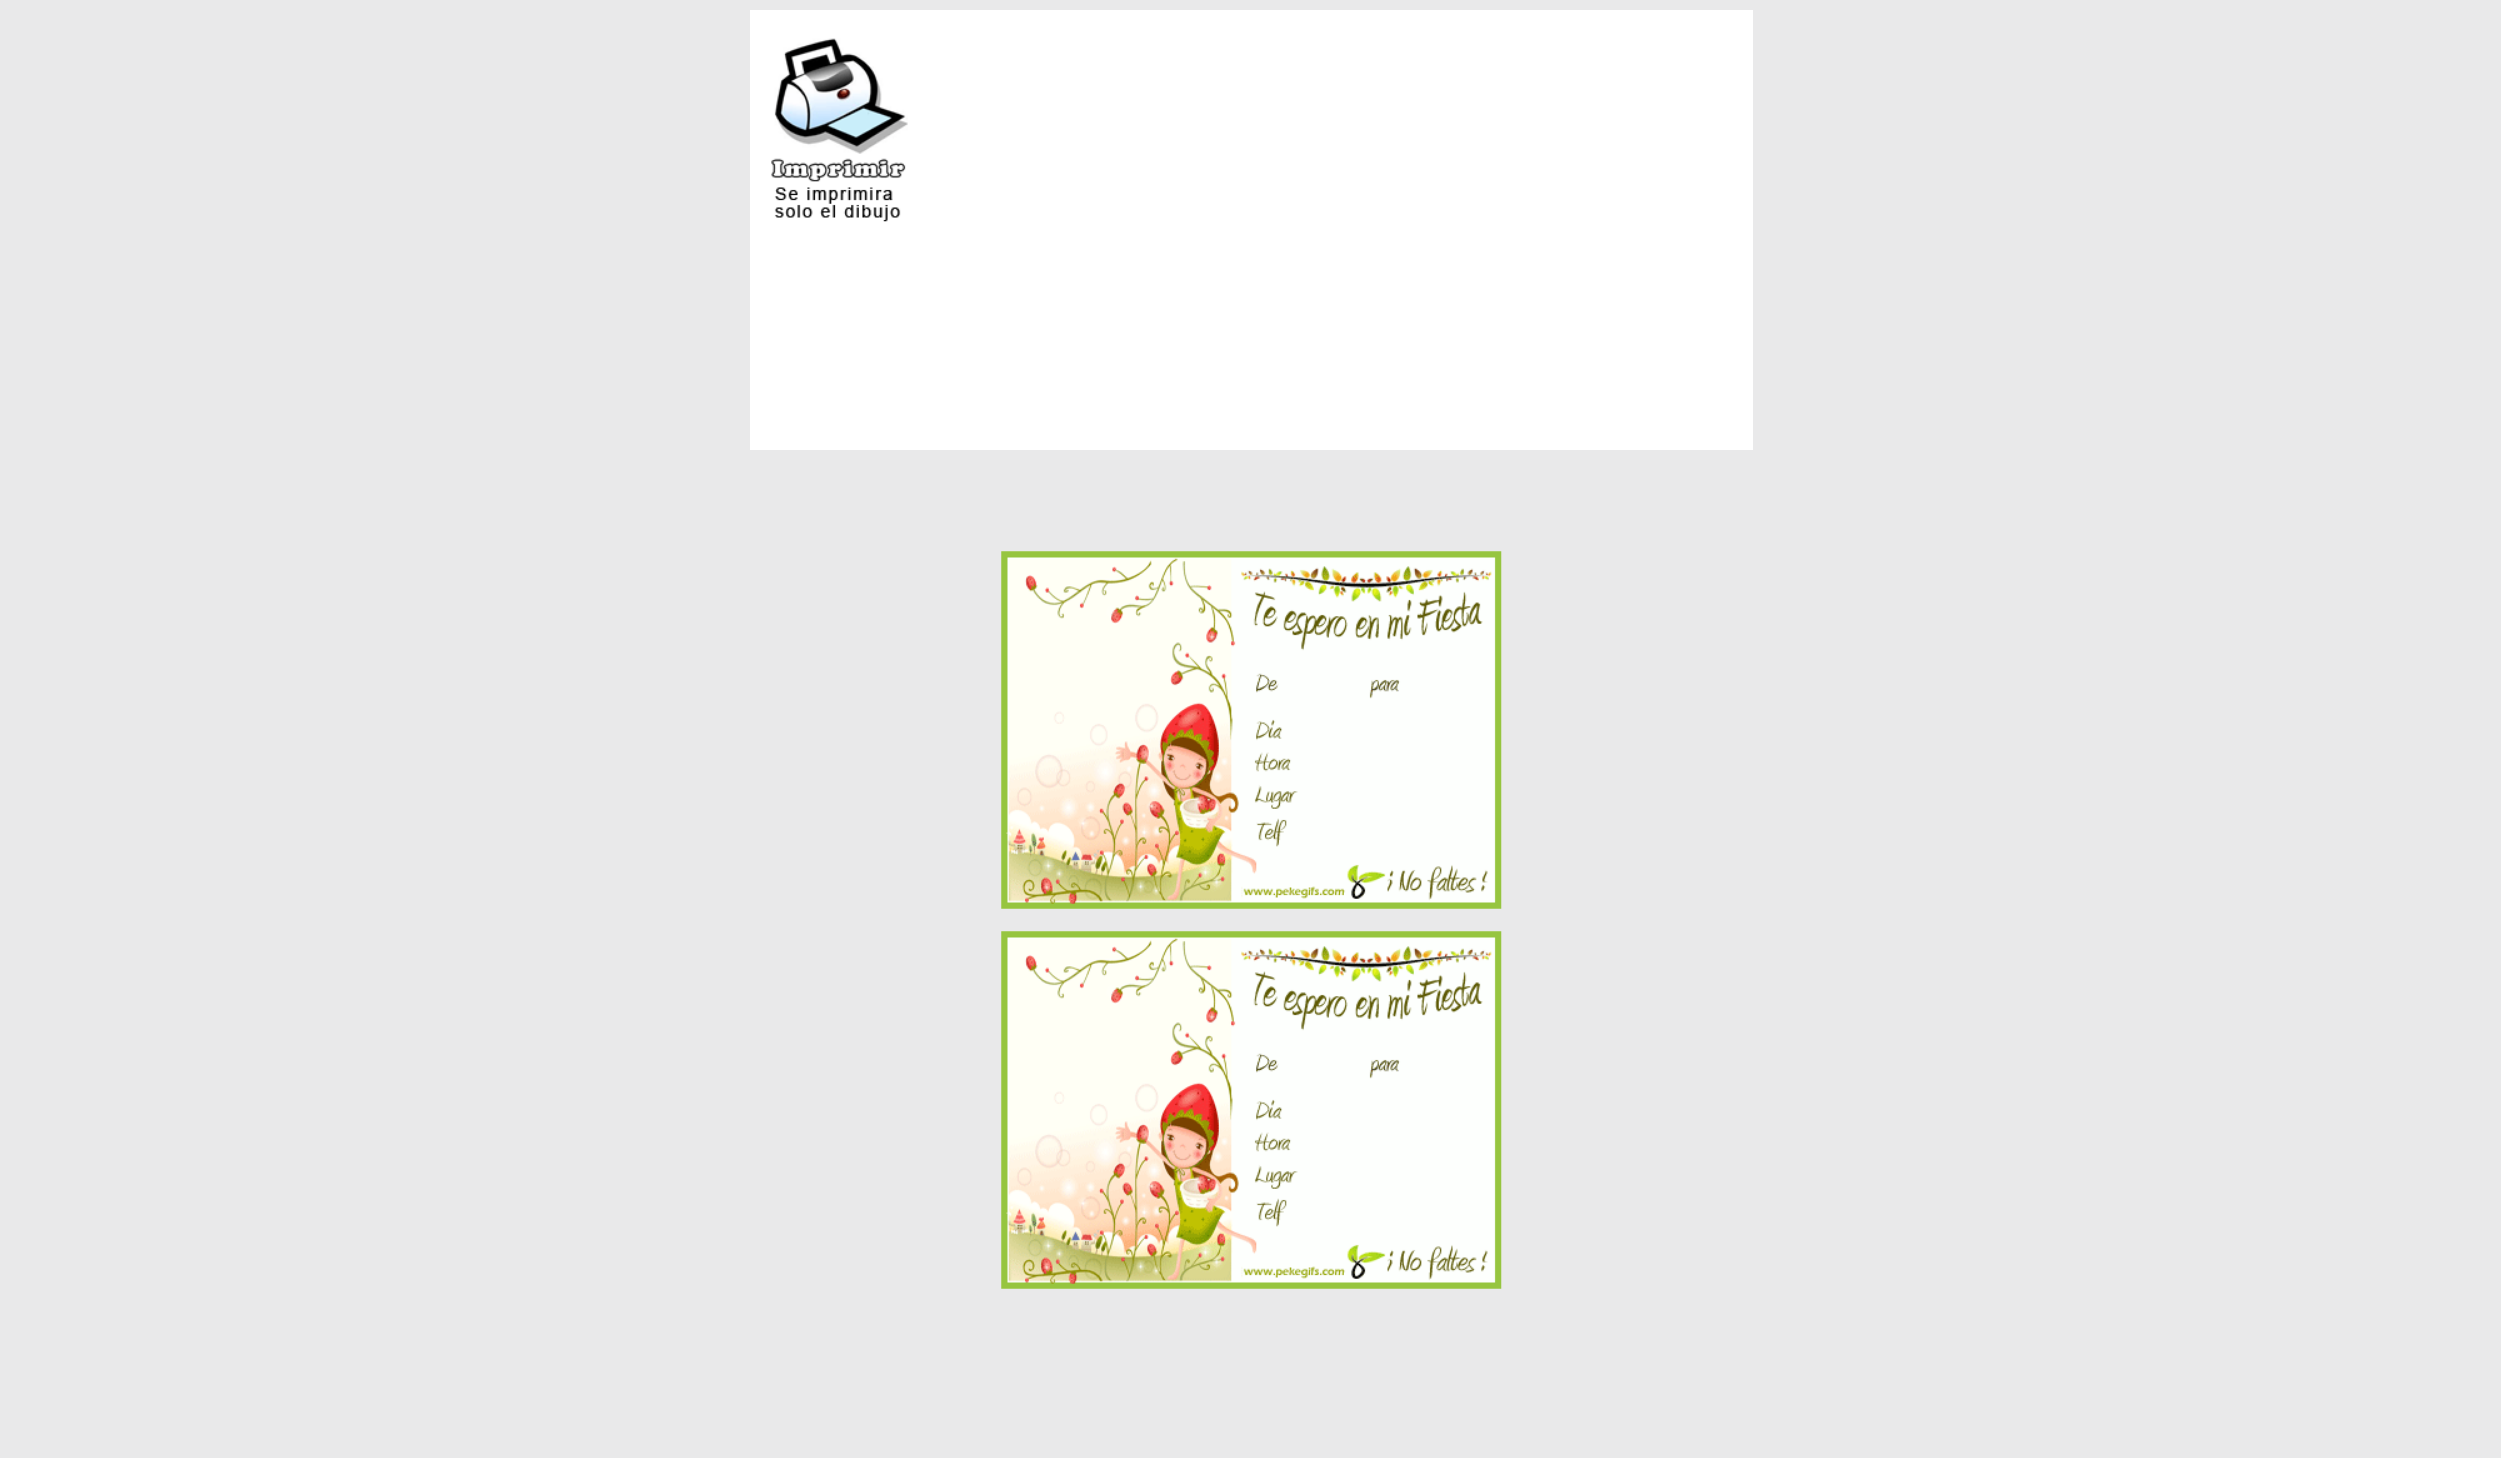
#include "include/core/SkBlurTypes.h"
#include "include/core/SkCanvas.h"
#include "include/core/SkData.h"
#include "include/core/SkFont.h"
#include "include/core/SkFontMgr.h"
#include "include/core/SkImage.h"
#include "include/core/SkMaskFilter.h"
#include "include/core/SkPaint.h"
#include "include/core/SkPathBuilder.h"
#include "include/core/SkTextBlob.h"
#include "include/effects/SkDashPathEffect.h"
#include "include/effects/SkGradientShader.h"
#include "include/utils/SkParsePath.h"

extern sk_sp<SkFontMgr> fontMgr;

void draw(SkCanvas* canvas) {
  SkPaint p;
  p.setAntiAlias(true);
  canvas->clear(SkColorSetRGB(233, 233, 234));
  p.setColor(SK_ColorWHITE);
  canvas->drawRect(SkRect::MakeLTRB(750, 10, 1753, 450), p);
  canvas->drawImageRect(SkImages::DeferredFromEncodedData(SkData::MakeFromFileName("images/1.png")), SkRect::MakeLTRB(771, 38, 908, 222), SkSamplingOptions());
  canvas->drawImageRect(SkImages::DeferredFromEncodedData(SkData::MakeFromFileName("images/2.png")), SkRect::MakeLTRB(1001, 551, 1502, 909), SkSamplingOptions());
  canvas->drawImageRect(SkImages::DeferredFromEncodedData(SkData::MakeFromFileName("images/3.png")), SkRect::MakeLTRB(1001, 931, 1502, 1289), SkSamplingOptions());
}
